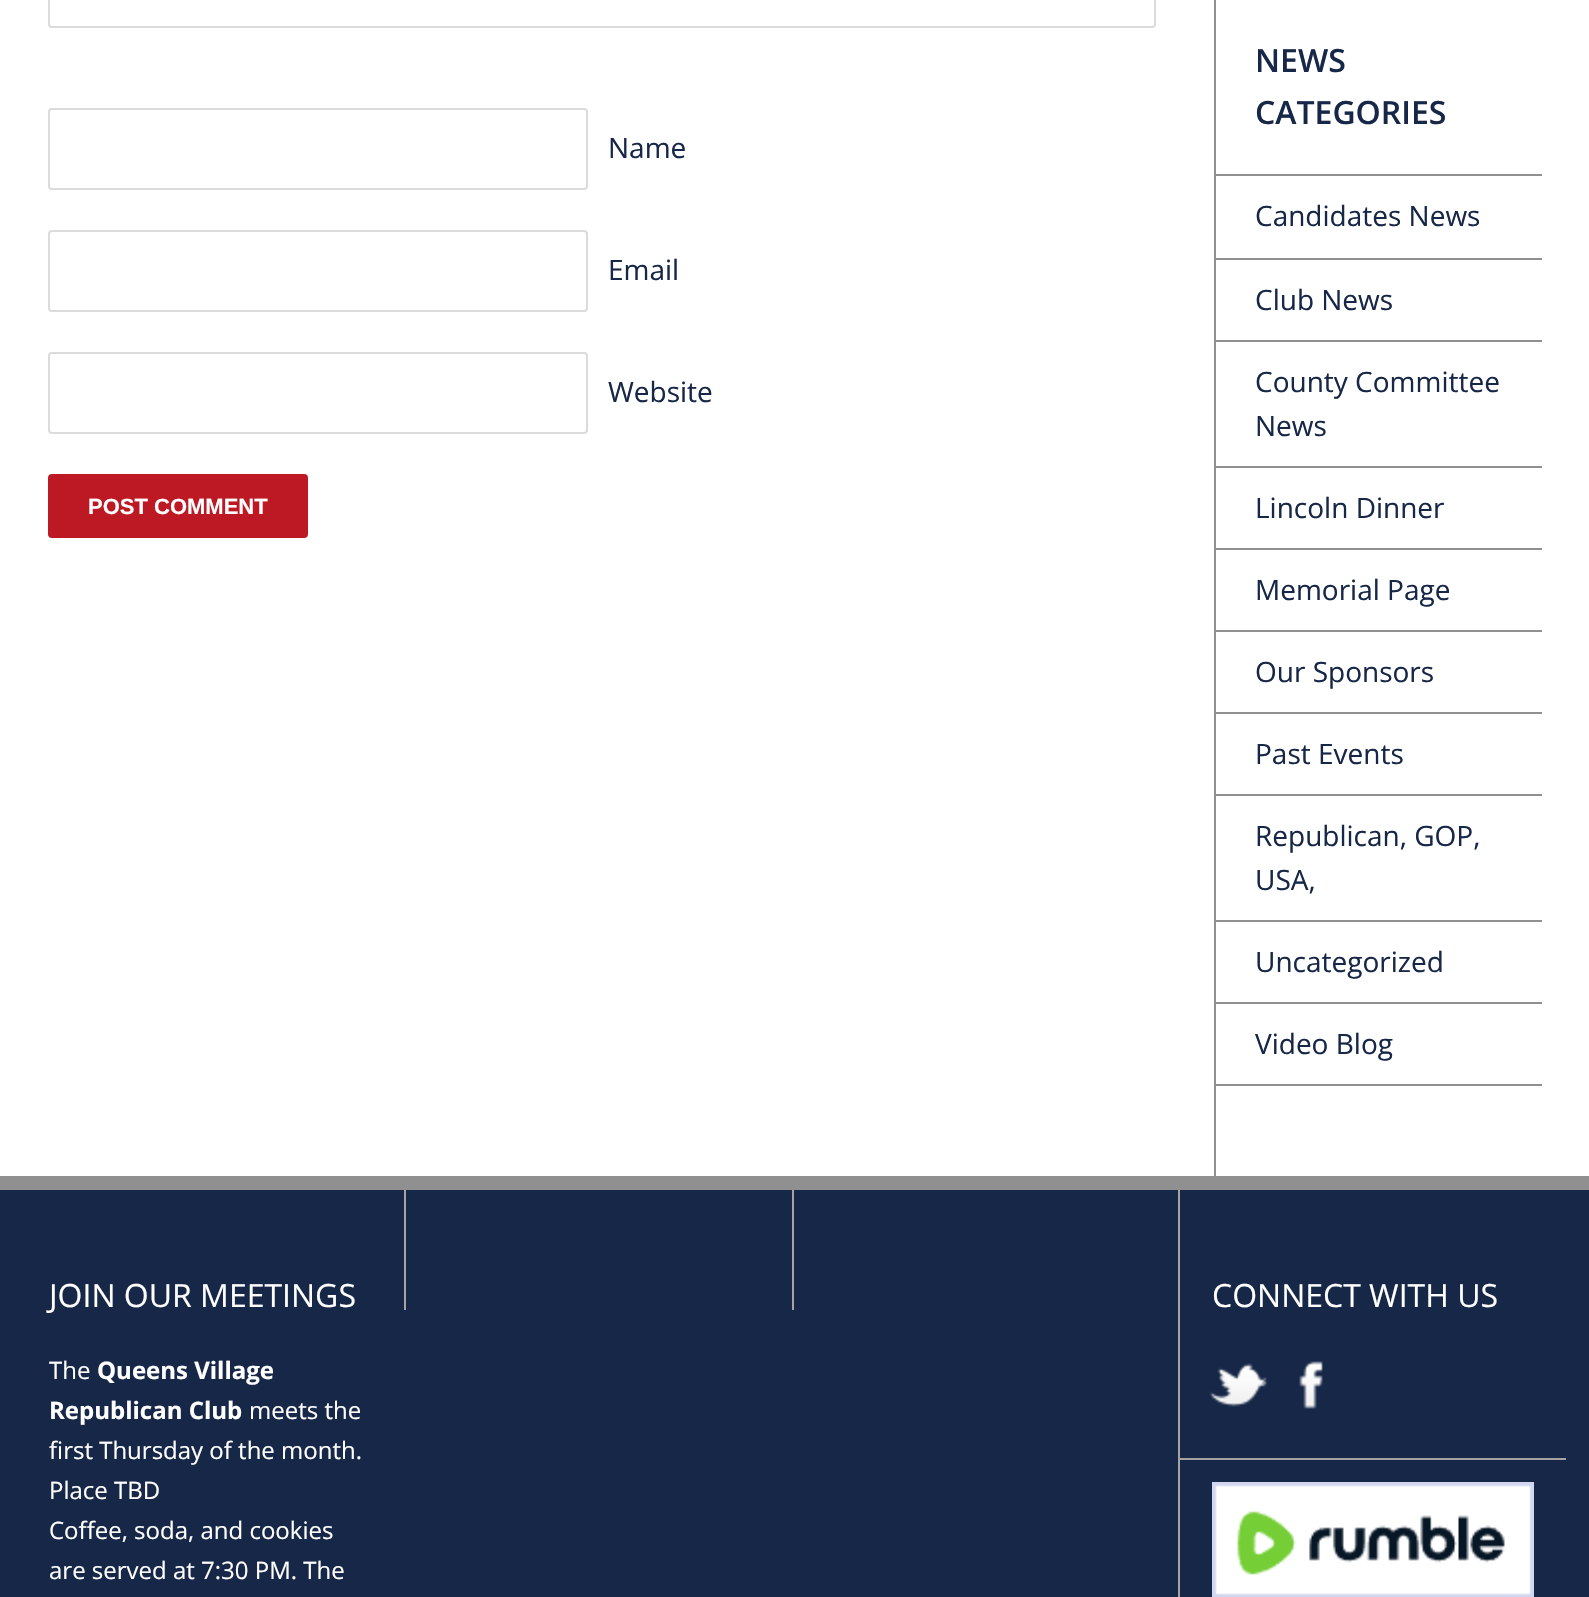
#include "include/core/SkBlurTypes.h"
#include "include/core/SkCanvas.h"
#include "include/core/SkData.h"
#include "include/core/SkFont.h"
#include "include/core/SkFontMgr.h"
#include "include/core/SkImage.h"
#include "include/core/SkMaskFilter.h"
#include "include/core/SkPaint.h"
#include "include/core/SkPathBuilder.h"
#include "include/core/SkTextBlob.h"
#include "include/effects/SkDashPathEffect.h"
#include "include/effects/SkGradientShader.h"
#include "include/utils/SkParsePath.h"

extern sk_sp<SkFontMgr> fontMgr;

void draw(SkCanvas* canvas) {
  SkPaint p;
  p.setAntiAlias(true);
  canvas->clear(SK_ColorWHITE);
  p.setStyle(SkPaint::kStroke_Style);
  p.setStrokeWidth(2);
  p.setColor(SkColorSetRGB(219, 219, 219));
  canvas->drawRoundRect(SkRect::MakeLTRB(49, -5, 1155, 27), 3, 3, p);
  canvas->drawRoundRect(SkRect::MakeLTRB(49, 109, 587, 189), 3, 3, p);
  canvas->drawRoundRect(SkRect::MakeLTRB(49, 231, 587, 311), 3, 3, p);
  canvas->drawRoundRect(SkRect::MakeLTRB(49, 353, 587, 433), 3, 3, p);
  p.setStyle(SkPaint::kFill_Style);
  p.setColor(SkColorSetRGB(188, 25, 36));
  canvas->drawRoundRect(SkRect::MakeLTRB(48, 474, 308, 538), 4, 4, p);
  p.setColor(SkColorSetRGB(144, 144, 144));
  canvas->drawRect(SkRect::MakeLTRB(1214, 0, 1216, 1176), p);
  canvas->drawRect(SkRect::MakeLTRB(1216, 1084, 1542, 1086), p);
  canvas->drawRect(SkRect::MakeLTRB(1216, 174, 1542, 176), p);
  canvas->drawRect(SkRect::MakeLTRB(1216, 258, 1542, 260), p);
  canvas->drawRect(SkRect::MakeLTRB(1216, 340, 1542, 342), p);
  canvas->drawRect(SkRect::MakeLTRB(1216, 466, 1542, 468), p);
  canvas->drawRect(SkRect::MakeLTRB(1216, 548, 1542, 550), p);
  canvas->drawRect(SkRect::MakeLTRB(1216, 630, 1542, 632), p);
  canvas->drawRect(SkRect::MakeLTRB(1216, 712, 1542, 714), p);
  canvas->drawRect(SkRect::MakeLTRB(1216, 794, 1542, 796), p);
  canvas->drawRect(SkRect::MakeLTRB(1216, 920, 1542, 922), p);
  canvas->drawRect(SkRect::MakeLTRB(1216, 1002, 1542, 1004), p);
  p.setColor(SkColorSetRGB(23, 39, 71));
  canvas->drawRect(SkRect::MakeLTRB(0, 1190, 1589, 1597), p);
  p.setColor(SkColorSetRGB(144, 144, 144));
  canvas->drawRect(SkRect::MakeLTRB(0, 1176, 1589, 1190), p);
  p.setColor(SkColorSetRGB(168, 163, 163));
  canvas->drawRect(SkRect::MakeLTRB(404, 1190, 406, 1310), p);
  canvas->drawRect(SkRect::MakeLTRB(792, 1190, 794, 1310), p);
  canvas->drawRect(SkRect::MakeLTRB(1178, 1190, 1180, 1597), p);
  canvas->drawImageRect(SkImages::DeferredFromEncodedData(SkData::MakeFromFileName("images/1.png")), SkRect::MakeLTRB(1209, 1363, 1267, 1407), SkSamplingOptions());
  canvas->drawImageRect(SkImages::DeferredFromEncodedData(SkData::MakeFromFileName("images/2.png")), SkRect::MakeLTRB(1299, 1361, 1323, 1409), SkSamplingOptions());
  canvas->drawRect(SkRect::MakeLTRB(1180, 1458, 1566, 1460), p);
  canvas->drawImageRect(SkImages::DeferredFromEncodedData(SkData::MakeFromFileName("images/3.png")), SkRect::MakeLTRB(1212, 1482, 1534, 1597), SkSamplingOptions());
  SkFont font1(fontMgr->matchFamilyStyle("Open Sans", SkFontStyle::Normal()), 28);
  font1.setSubpixel(true);
  p.setColor(SkColorSetRGB(23, 39, 71));
  canvas->drawString("Name", 608, 158, font1, p);
  canvas->drawString("Email", 608, 280, font1, p);
  canvas->drawString("Website", 608, 402, font1, p);
  SkFont font2(fontMgr->matchFamilyStyle("Liberation Sans", SkFontStyle::Bold()), 22);
  font2.setSubpixel(true);
  p.setColor(SK_ColorWHITE);
  canvas->drawString("POST COMMENT", 88, 514, font2, p);
  SkFont font3(fontMgr->matchFamilyStyle("Open Sans", SkFontStyle(600, SkFontStyle::kNormal_Width, SkFontStyle::kUpright_Slant)), 32);
  font3.setSubpixel(true);
  p.setColor(SkColorSetRGB(23, 39, 71));
  canvas->drawString("NEWS", 1255, 72, font3, p);
  canvas->drawString("CATEGORIES", 1255, 124, font3, p);
  canvas->drawString("Candidates News", 1255, 226, font1, p);
  canvas->drawString("Club News", 1255, 310, font1, p);
  canvas->drawString("County Committee", 1255, 392, font1, p);
  canvas->drawString("News", 1255, 436, font1, p);
  canvas->drawString("Lincoln Dinner", 1255, 518, font1, p);
  canvas->drawString("Memorial Page", 1255, 600, font1, p);
  canvas->drawString("Our Sponsors", 1255, 682, font1, p);
  canvas->drawString("Past Events", 1255, 764, font1, p);
  canvas->drawString("Republican, GOP,", 1255, 846, font1, p);
  canvas->drawString("USA,", 1255, 890, font1, p);
  canvas->drawString("Uncategorized", 1255, 972, font1, p);
  canvas->drawString("Video Blog", 1255, 1054, font1, p);
  SkFont font4(fontMgr->matchFamilyStyle("Open Sans", SkFontStyle::Normal()), 32);
  font4.setSubpixel(true);
  p.setColor(SK_ColorWHITE);
  canvas->drawString("JOIN OUR MEETINGS", 49, 1307, font4, p);
  SkFont font5(fontMgr->matchFamilyStyle("Open Sans", SkFontStyle::Normal()), 24);
  font5.setSubpixel(true);
  canvas->drawString("The", 49, 1379, font5, p);
  SkFont font6(fontMgr->matchFamilyStyle("Open Sans", SkFontStyle::Bold()), 24);
  font6.setSubpixel(true);
  canvas->drawString("Queens Village", 97, 1379, font6, p);
  canvas->drawString("Republican Club", 49, 1419, font6, p);
  canvas->drawString("meets the", 249, 1419, font5, p);
  canvas->drawString("first Thursday of the month.", 49, 1459, font5, p);
  canvas->drawString("Place TBD", 49, 1499, font5, p);
  canvas->drawString("Coffee, soda, and cookies", 49, 1539, font5, p);
  canvas->drawString("are served at 7:30 PM. The", 49, 1579, font5, p);
  canvas->drawString("CONNECT WITH US", 1212, 1307, font4, p);
}
